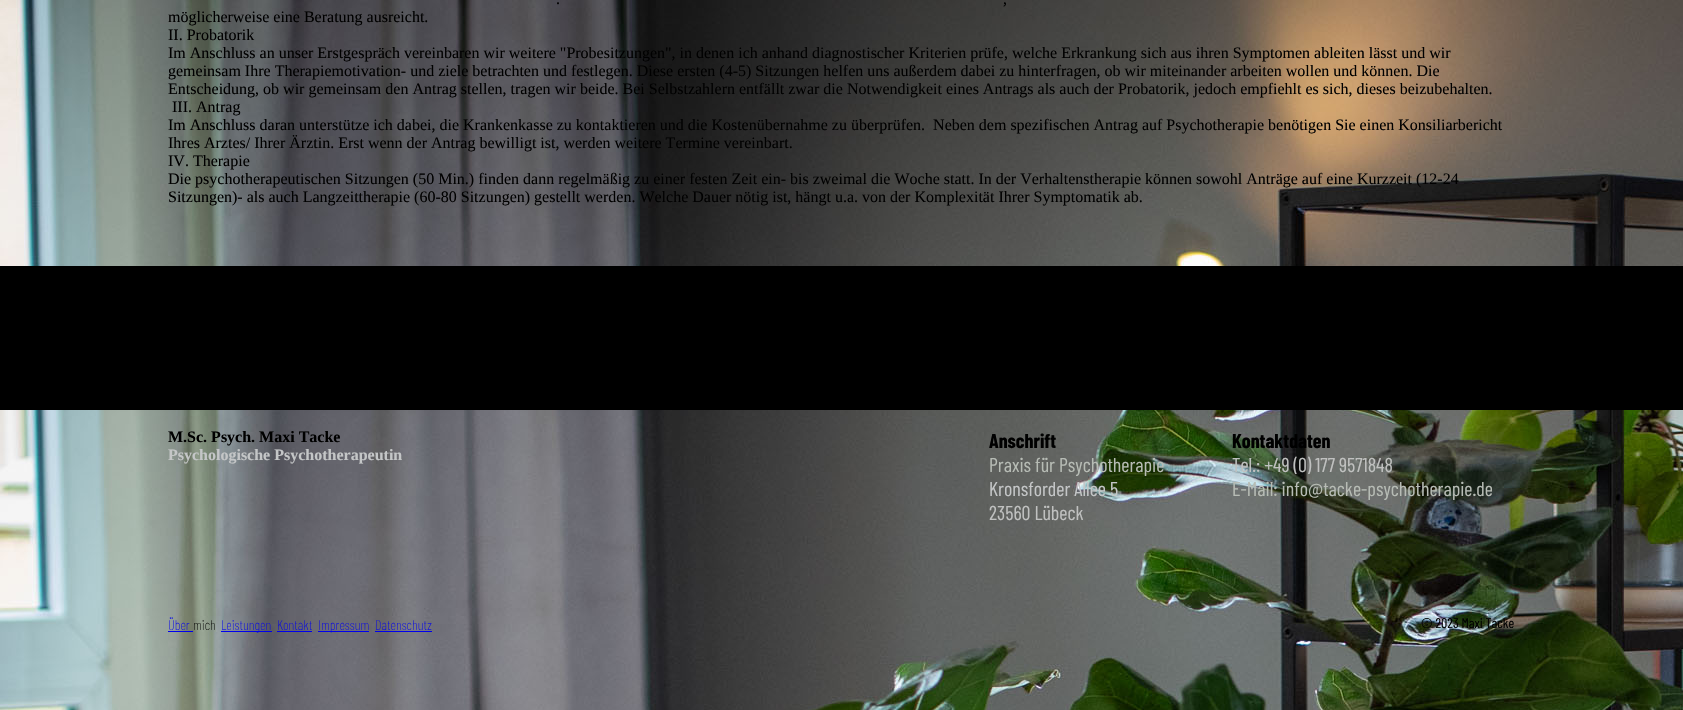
#include "include/core/SkBlurTypes.h"
#include "include/core/SkCanvas.h"
#include "include/core/SkData.h"
#include "include/core/SkFont.h"
#include "include/core/SkFontMgr.h"
#include "include/core/SkImage.h"
#include "include/core/SkMaskFilter.h"
#include "include/core/SkPaint.h"
#include "include/core/SkPathBuilder.h"
#include "include/core/SkTextBlob.h"
#include "include/effects/SkDashPathEffect.h"
#include "include/effects/SkGradientShader.h"
#include "include/utils/SkParsePath.h"

extern sk_sp<SkFontMgr> fontMgr;

void draw(SkCanvas* canvas) {
  SkPaint p;
  p.setAntiAlias(true);
  canvas->clear(SK_ColorWHITE);
  canvas->drawImageRect(SkImages::DeferredFromEncodedData(SkData::MakeFromFileName("images/1.png")), SkRect::MakeLTRB(0, 0, 1683, 710), SkSamplingOptions());
  p.setColor(SK_ColorBLACK);
  canvas->drawRect(SkRect::MakeLTRB(0, 266, 1683, 410), p);
  p.setColor(SkColorSetRGB(0, 0, 238));
  canvas->drawRect(SkRect::MakeLTRB(168, 631, 193, 632), p);
  canvas->drawRect(SkRect::MakeLTRB(221, 631, 272, 632), p);
  canvas->drawRect(SkRect::MakeLTRB(277, 631, 312, 632), p);
  canvas->drawRect(SkRect::MakeLTRB(318, 631, 369, 632), p);
  canvas->drawRect(SkRect::MakeLTRB(375, 631, 432, 632), p);
  SkFont font1(fontMgr->matchFamilyStyle("Liberation Serif", SkFontStyle::Normal()), 16);
  font1.setSubpixel(true);
  p.setColor(SK_ColorBLACK);
  canvas->drawString(".", 556, 4, font1, p);
  canvas->drawString(",", 1003, 4, font1, p);
  canvas->drawString("möglicherweise eine Beratung ausreicht.", 168, 22, font1, p);
  canvas->drawString("II. Probatorik", 168, 40, font1, p);
  canvas->drawString("Im Anschluss an unser Erstgespräch vereinbaren wir weitere \"Probesitzungen\", in denen ich anhand diagnostischer Kriterien prüfe, welche Erkrankung sich aus ihren Symptomen ableiten lässt und wir", 168, 58, font1, p);
  canvas->drawString("gemeinsam Ihre Therapiemotivation- und ziele betrachten und festlegen. Diese ersten (4-5) Sitzungen helfen uns außerdem dabei zu hinterfragen, ob wir miteinander arbeiten wollen und können. Die", 168, 76, font1, p);
  canvas->drawString("Entscheidung, ob wir gemeinsam den Antrag stellen, tragen wir beide. Bei Selbstzahlern entfällt zwar die Notwendigkeit eines Antrags als auch der Probatorik, jedoch empfiehlt es sich, dieses beizubehalten.", 168, 94, font1, p);
  canvas->drawString("III. Antrag", 172, 112, font1, p);
  canvas->drawString("Im Anschluss daran unterstütze ich dabei, die Krankenkasse zu kontaktieren und die Kostenübernahme zu überprüfen.  Neben dem spezifischen Antrag auf Psychotherapie benötigen Sie einen Konsiliarbericht", 168, 130, font1, p);
  canvas->drawString("Ihres Arztes/ Ihrer Ärztin. Erst wenn der Antrag bewilligt ist, werden weitere Termine vereinbart.", 168, 148, font1, p);
  canvas->drawString("IV. Therapie", 168, 166, font1, p);
  canvas->drawString("Die psychotherapeutischen Sitzungen (50 Min.) finden dann regelmäßig zu einer festen Zeit ein- bis zweimal die Woche statt. In der Verhaltenstherapie können sowohl Anträge auf eine Kurzzeit (12-24", 168, 184, font1, p);
  canvas->drawString("Sitzungen)- als auch Langzeittherapie (60-80 Sitzungen) gestellt werden. Welche Dauer nötig ist, hängt u.a. von der Komplexität Ihrer Symptomatik ab.", 168, 202, font1, p);
  SkFont font2(fontMgr->matchFamilyStyle("Liberation Serif", SkFontStyle::Bold()), 16);
  font2.setSubpixel(true);
  canvas->drawString("M.Sc. Psych. Maxi Tacke", 168, 442, font2, p);
  p.setColor(SkColorSetRGB(196, 198, 199));
  canvas->drawString("Psychologische Psychotherapeutin", 168, 460, font2, p);
  SkFont font3(fontMgr->matchFamilyStyle("Barlow Condensed", SkFontStyle::Bold()), 20);
  font3.setSubpixel(true);
  p.setColor(SK_ColorBLACK);
  canvas->drawString("Anschrift", 989, 448, font3, p);
  SkFont font4(fontMgr->matchFamilyStyle("Barlow Condensed", SkFontStyle::Normal()), 20);
  font4.setSubpixel(true);
  p.setColor(SkColorSetRGB(183, 188, 181));
  canvas->drawString("Praxis für Psychotherapie", 989, 472, font4, p);
  p.setColor(SkColorSetRGB(196, 198, 199));
  canvas->drawString("Kronsforder Allee 5", 989, 496, font4, p);
  p.setColor(SkColorSetRGB(192, 193, 192));
  canvas->drawString("23560 Lübeck", 989, 520, font4, p);
  p.setColor(SK_ColorBLACK);
  canvas->drawString("Kontaktdaten", 1232, 448, font3, p);
  p.setColor(SkColorSetRGB(192, 193, 192));
  canvas->drawString("Tel.: +49 (0) 177 9571848", 1232, 472, font4, p);
  p.setColor(SkColorSetRGB(183, 188, 181));
  canvas->drawString("E-Mail: info@tacke-psychotherapie.de", 1232, 496, font4, p);
  SkFont font5(fontMgr->matchFamilyStyle("Barlow Condensed", SkFontStyle(200, SkFontStyle::kNormal_Width, SkFontStyle::kUpright_Slant)), 14);
  font5.setSubpixel(true);
  p.setColor(SkColorSetRGB(0, 0, 238));
  canvas->drawString("Über", 168, 630, font5, p);
  p.setColor(SK_ColorBLACK);
  canvas->drawString("mich", 193, 630, font5, p);
  p.setColor(SkColorSetRGB(0, 0, 238));
  canvas->drawString("Leistungen", 221, 630, font5, p);
  canvas->drawString("Kontakt", 277, 630, font5, p);
  canvas->drawString("Impressum", 318, 630, font5, p);
  canvas->drawString("Datenschutz", 375, 630, font5, p);
  SkFont font6(fontMgr->matchFamilyStyle("Barlow Condensed", SkFontStyle::Normal()), 14);
  font6.setSubpixel(true);
  p.setColor(SK_ColorBLACK);
  canvas->drawString("© 2023 Maxi Tacke", 1421, 628, font6, p);
}
